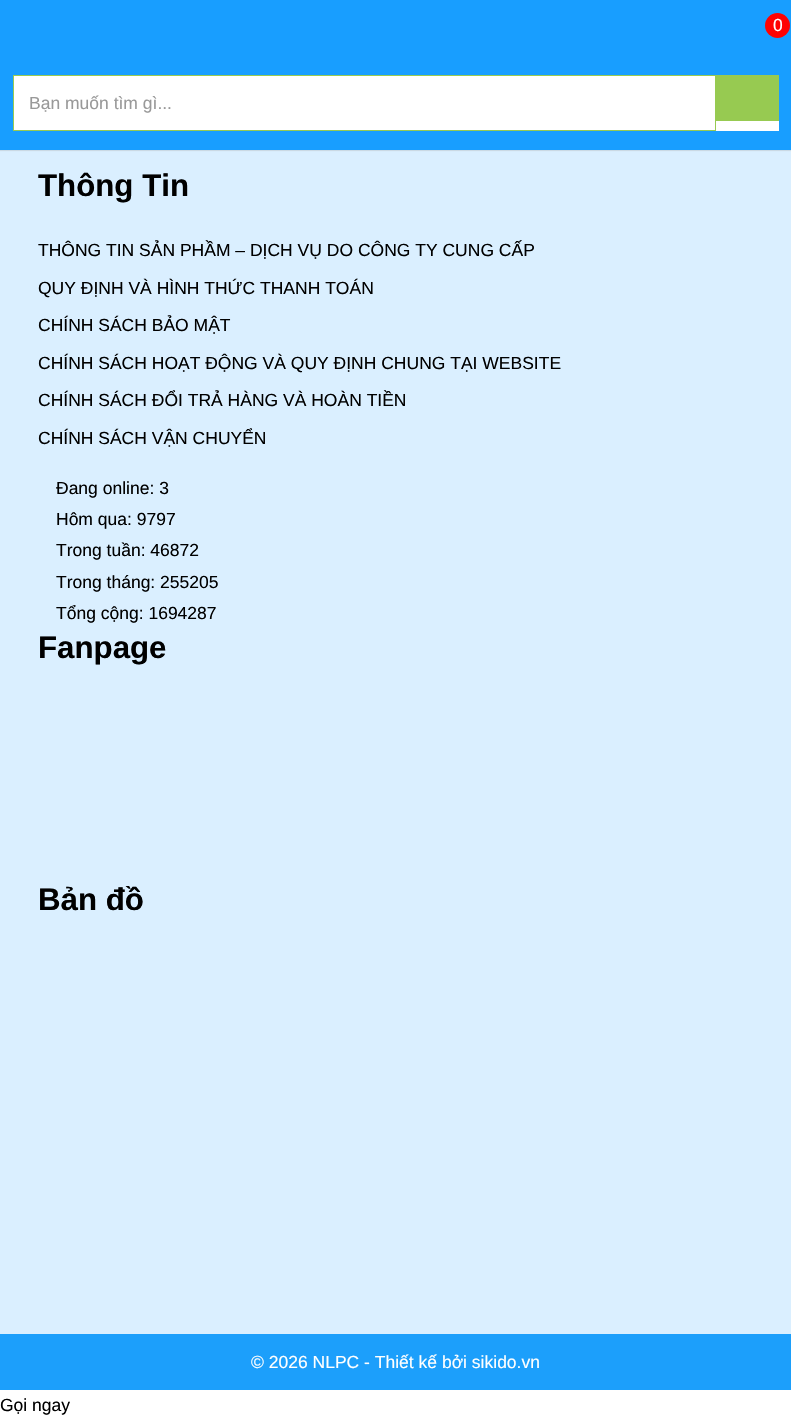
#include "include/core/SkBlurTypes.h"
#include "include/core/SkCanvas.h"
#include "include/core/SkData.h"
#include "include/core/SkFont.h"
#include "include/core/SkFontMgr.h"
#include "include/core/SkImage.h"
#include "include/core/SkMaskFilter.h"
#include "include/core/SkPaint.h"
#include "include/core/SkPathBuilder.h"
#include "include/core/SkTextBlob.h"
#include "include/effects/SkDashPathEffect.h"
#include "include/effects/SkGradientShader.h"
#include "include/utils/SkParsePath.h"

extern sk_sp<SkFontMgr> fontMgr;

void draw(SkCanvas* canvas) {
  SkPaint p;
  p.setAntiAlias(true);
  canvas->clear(SK_ColorWHITE);
  p.setColor(SkColorSetRGB(218, 239, 255));
  canvas->drawRect(SkRect::MakeLTRB(0, 150, 791, 1334), p);
  p.setColor(SkColorSetARGB(77, 165, 165, 165));
  p.setMaskFilter(SkMaskFilter::MakeBlur(kNormal_SkBlurStyle, 0.5f));
  canvas->drawRect(SkRect::MakeLTRB(0, 1, 791, 151), p);
  p.setMaskFilter(nullptr);
  p.setColor(SkColorSetRGB(24, 158, 255));
  canvas->drawRect(SkRect::MakeLTRB(0, 0, 791, 150), p);
  p.setColor(SkColorSetRGB(255, 2, 2));
  canvas->drawCircle(777.5f, 25.5f, 12.5f, p);
  p.setColor(SK_ColorWHITE);
  canvas->drawRect(SkRect::MakeLTRB(14, 76, 779, 131), p);
  p.setStyle(SkPaint::kStroke_Style);
  p.setStrokeWidth(1);
  p.setColor(SkColorSetRGB(151, 202, 81));
  canvas->drawRect(SkRect::MakeLTRB(13.5f, 75.5f, 715.5f, 130.5f), p);
  p.setStyle(SkPaint::kFill_Style);
  canvas->drawRect(SkRect::MakeLTRB(716, 75, 779, 121), p);
  p.setColor(SkColorSetRGB(28, 159, 251));
  canvas->drawRect(SkRect::MakeLTRB(0, 1334, 791, 1390), p);
  SkFont font1(fontMgr->matchFamilyStyle("Liberation Sans", SkFontStyle::Normal()), 17.5f);
  font1.setSubpixel(true);
  p.setColor(SK_ColorWHITE);
  canvas->drawString("0", 773, 31, font1, p);
  p.setColor(SkColorSetRGB(153, 153, 153));
  canvas->drawString("Bạn muốn tìm gì...", 29, 109, font1, p);
  SkFont font2(fontMgr->matchFamilyStyle("Liberation Sans", SkFontStyle::Bold()), 31.25f);
  font2.setSubpixel(true);
  p.setColor(SK_ColorBLACK);
  canvas->drawString("Thông Tin", 38, 196, font2, p);
  canvas->drawString("THÔNG TIN SẢN PHẦM – DỊCH VỤ DO CÔNG TY CUNG CẤP", 38, 256, font1, p);
  canvas->drawString("QUY ĐỊNH VÀ HÌNH THỨC THANH TOÁN", 38, 294, font1, p);
  canvas->drawString("CHÍNH SÁCH BẢO MẬT", 38, 331, font1, p);
  canvas->drawString("CHÍNH SÁCH HOẠT ĐỘNG VÀ QUY ĐỊNH CHUNG TẠI WEBSITE", 38, 369, font1, p);
  canvas->drawString("CHÍNH SÁCH ĐỔI TRẢ HÀNG VÀ HOÀN TIỀN", 38, 406, font1, p);
  canvas->drawString("CHÍNH SÁCH VẬN CHUYỂN", 38, 444, font1, p);
  canvas->drawString("Đang online: 3", 56, 494, font1, p);
  canvas->drawString("Hôm qua: 9797", 56, 525, font1, p);
  canvas->drawString("Trong tuần: 46872", 56, 556, font1, p);
  canvas->drawString("Trong tháng: 255205", 56, 588, font1, p);
  canvas->drawString("Tổng cộng: 1694287", 56, 619, font1, p);
  canvas->drawString("Fanpage", 38, 658, font2, p);
  canvas->drawString("Bản đồ", 38, 910, font2, p);
  p.setColor(SK_ColorWHITE);
  canvas->drawString("© 2026 NLPC - Thiết kế bởi sikido.vn", 251, 1368, font1, p);
  p.setColor(SK_ColorBLACK);
  canvas->drawString("Gọi ngay", 0, 1411, font1, p);
}
